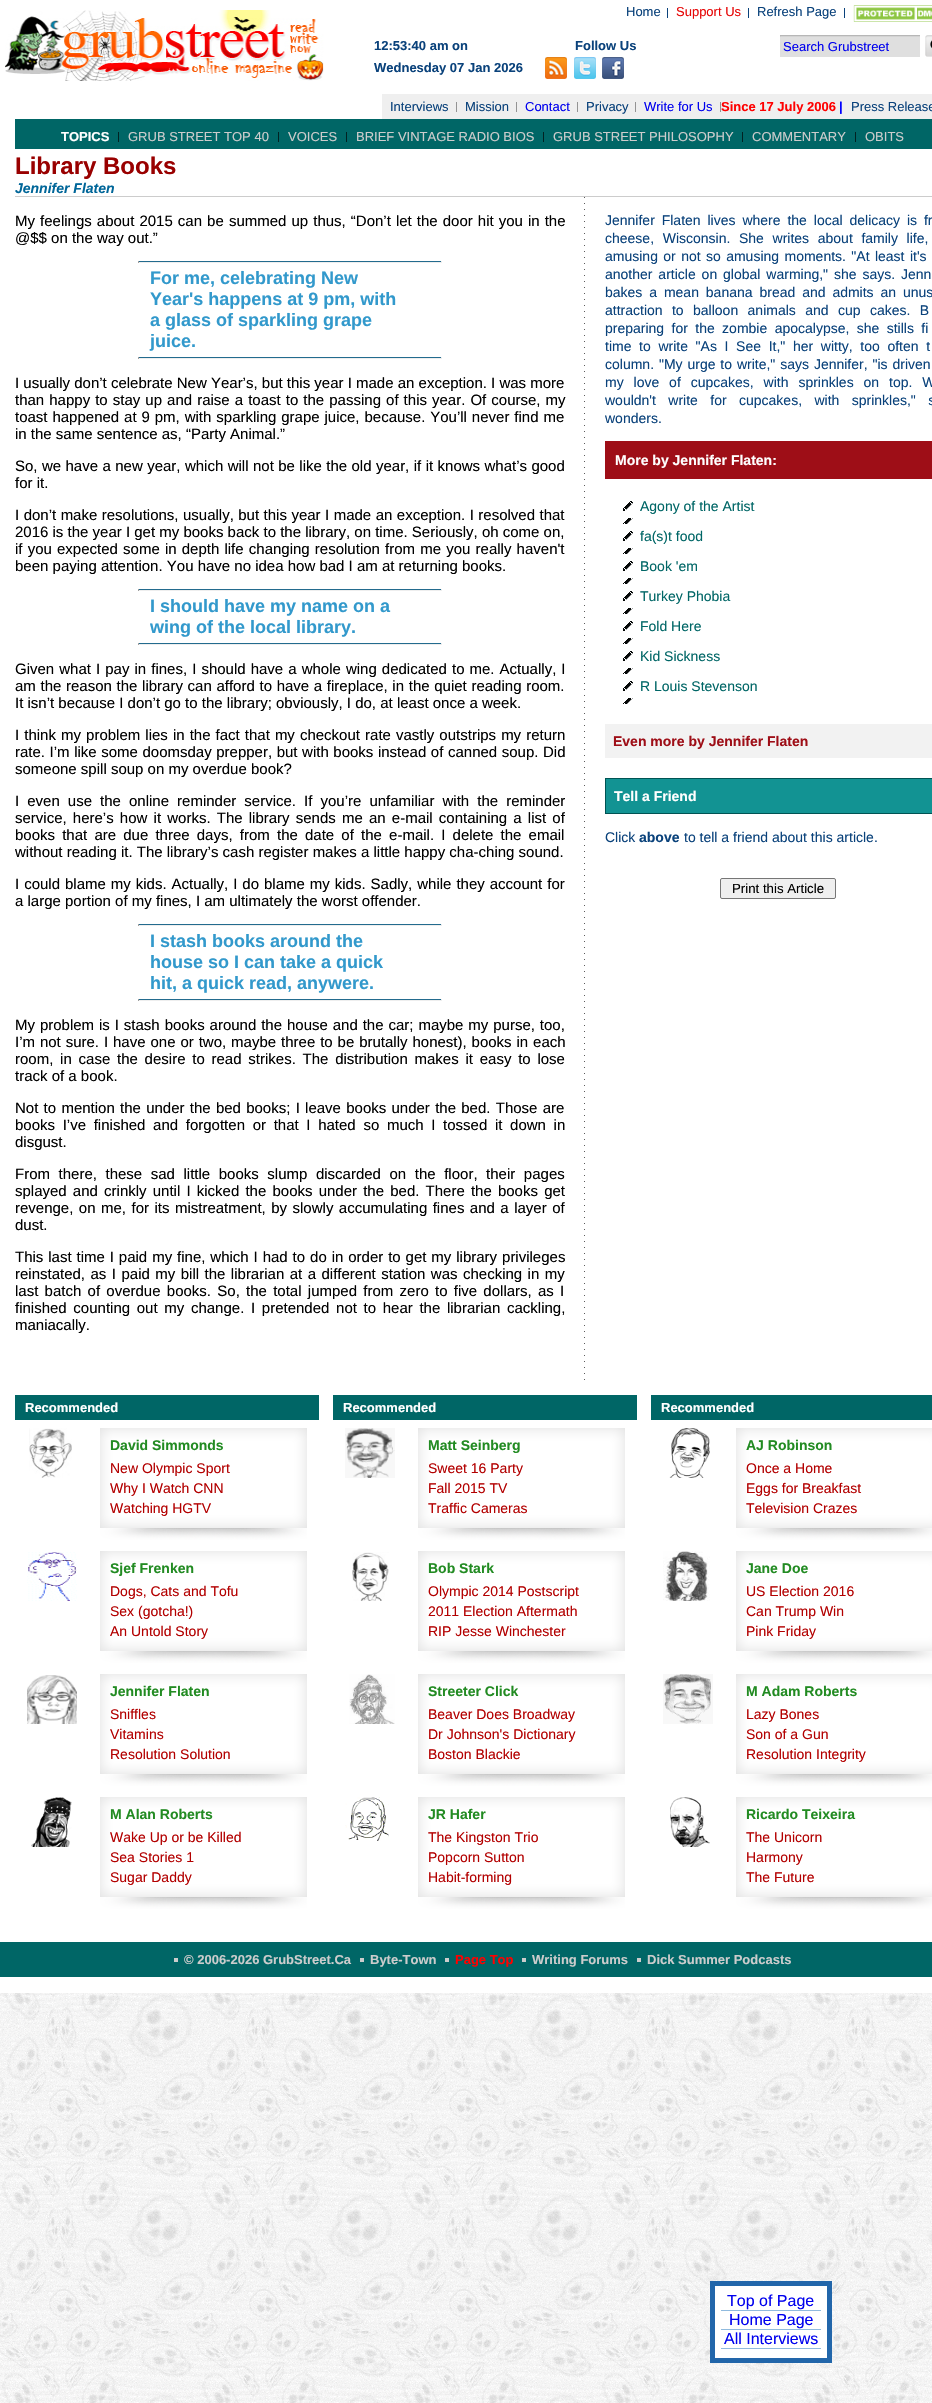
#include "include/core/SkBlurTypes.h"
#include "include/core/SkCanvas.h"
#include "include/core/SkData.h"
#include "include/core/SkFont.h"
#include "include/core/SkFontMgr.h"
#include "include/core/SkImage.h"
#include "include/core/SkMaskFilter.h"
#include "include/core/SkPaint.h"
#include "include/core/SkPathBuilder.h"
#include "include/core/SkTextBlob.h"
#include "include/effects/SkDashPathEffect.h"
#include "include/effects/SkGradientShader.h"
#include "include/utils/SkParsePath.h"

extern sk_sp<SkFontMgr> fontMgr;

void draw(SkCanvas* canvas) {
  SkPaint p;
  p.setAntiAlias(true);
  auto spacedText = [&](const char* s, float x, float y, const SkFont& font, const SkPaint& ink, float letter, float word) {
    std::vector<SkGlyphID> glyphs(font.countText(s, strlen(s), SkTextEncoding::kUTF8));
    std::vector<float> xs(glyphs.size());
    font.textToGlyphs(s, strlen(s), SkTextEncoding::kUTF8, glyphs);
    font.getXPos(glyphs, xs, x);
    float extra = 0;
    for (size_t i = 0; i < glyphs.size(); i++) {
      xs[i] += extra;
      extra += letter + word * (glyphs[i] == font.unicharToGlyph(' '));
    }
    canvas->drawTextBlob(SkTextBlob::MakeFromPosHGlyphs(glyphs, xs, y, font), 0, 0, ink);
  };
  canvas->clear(SK_ColorWHITE);
  canvas->drawImageRect(SkImages::DeferredFromEncodedData(SkData::MakeFromFileName("images/1.png")), SkRect::MakeLTRB(0, 1993, 932, 2403), SkSamplingOptions());
  canvas->drawImageRect(SkImages::DeferredFromEncodedData(SkData::MakeFromFileName("images/2.png")), SkRect::MakeLTRB(5, 10, 324, 81), SkSamplingOptions());
  p.setColor(SkColorSetRGB(10, 66, 123));
  canvas->drawRect(SkRect::MakeLTRB(667, 8, 668, 18), p);
  canvas->drawRect(SkRect::MakeLTRB(748, 8, 749, 18), p);
  canvas->drawRect(SkRect::MakeLTRB(844, 8, 845, 18), p);
  canvas->drawImageRect(SkImages::DeferredFromEncodedData(SkData::MakeFromFileName("images/3.png")), SkRect::MakeLTRB(853, 5, 932, 22), SkSamplingOptions());
  canvas->drawImageRect(SkImages::DeferredFromEncodedData(SkData::MakeFromFileName("images/4.png")), SkRect::MakeLTRB(545, 57, 567, 79), SkSamplingOptions());
  canvas->drawImageRect(SkImages::DeferredFromEncodedData(SkData::MakeFromFileName("images/5.png")), SkRect::MakeLTRB(574, 57, 596, 79), SkSamplingOptions());
  canvas->drawImageRect(SkImages::DeferredFromEncodedData(SkData::MakeFromFileName("images/6.png")), SkRect::MakeLTRB(602, 57, 624, 79), SkSamplingOptions());
  canvas->drawImageRect(SkImages::DeferredFromEncodedData(SkData::MakeFromFileName("images/7.png")), SkRect::MakeLTRB(780, 35, 920, 57), SkSamplingOptions());
  canvas->drawImageRect(SkImages::DeferredFromEncodedData(SkData::MakeFromFileName("images/8.png")), SkRect::MakeLTRB(925, 35, 932, 57), SkSamplingOptions());
  p.setColor(SkColorSetRGB(239, 239, 239));
  canvas->drawRect(SkRect::MakeLTRB(382, 94, 932, 119), p);
  p.setColor(SkColorSetRGB(147, 147, 147));
  canvas->drawRect(SkRect::MakeLTRB(456, 102, 457, 112), p);
  canvas->drawRect(SkRect::MakeLTRB(516, 102, 517, 112), p);
  canvas->drawRect(SkRect::MakeLTRB(577, 102, 578, 112), p);
  canvas->drawRect(SkRect::MakeLTRB(635, 102, 636, 112), p);
  canvas->drawRect(SkRect::MakeLTRB(720, 102, 721, 112), p);
  p.setColor(SkColorSetRGB(0, 102, 102));
  canvas->drawRect(SkRect::MakeLTRB(15, 119, 932, 149), p);
  p.setColor(SkColorSetRGB(1, 34, 34));
  canvas->drawRect(SkRect::MakeLTRB(118, 132, 119, 142), p);
  canvas->drawRect(SkRect::MakeLTRB(278, 132, 279, 142), p);
  canvas->drawRect(SkRect::MakeLTRB(346, 132, 347, 142), p);
  canvas->drawRect(SkRect::MakeLTRB(543, 132, 544, 142), p);
  canvas->drawRect(SkRect::MakeLTRB(742, 132, 743, 142), p);
  canvas->drawRect(SkRect::MakeLTRB(855, 132, 856, 142), p);
  p.setColor(SkColorSetRGB(204, 204, 204));
  canvas->drawRect(SkRect::MakeLTRB(15, 196, 932, 197), p);
  canvas->drawImageRect(SkImages::DeferredFromEncodedData(SkData::MakeFromFileName("images/9.png")), SkRect::MakeLTRB(584, 197, 585, 1380), SkSamplingOptions());
  p.setColor(SkColorSetRGB(35, 107, 142));
  canvas->drawRect(SkRect::MakeLTRB(138, 261, 442, 262), p);
  p.setColor(SkColorSetRGB(238, 238, 238));
  canvas->drawRect(SkRect::MakeLTRB(441, 261, 442, 263), p);
  canvas->drawRect(SkRect::MakeLTRB(138, 262, 442, 263), p);
  p.setColor(SkColorSetRGB(159, 159, 159));
  canvas->drawRect(SkRect::MakeLTRB(138, 261, 139, 263), p);
  p.setColor(SkColorSetRGB(35, 107, 142));
  canvas->drawRect(SkRect::MakeLTRB(138, 357, 442, 358), p);
  p.setColor(SkColorSetRGB(238, 238, 238));
  canvas->drawRect(SkRect::MakeLTRB(441, 357, 442, 359), p);
  canvas->drawRect(SkRect::MakeLTRB(138, 358, 442, 359), p);
  p.setColor(SkColorSetRGB(159, 159, 159));
  canvas->drawRect(SkRect::MakeLTRB(138, 357, 139, 359), p);
  p.setColor(SkColorSetRGB(35, 107, 142));
  canvas->drawRect(SkRect::MakeLTRB(138, 589, 442, 590), p);
  p.setColor(SkColorSetRGB(238, 238, 238));
  canvas->drawRect(SkRect::MakeLTRB(441, 589, 442, 591), p);
  canvas->drawRect(SkRect::MakeLTRB(138, 590, 442, 591), p);
  p.setColor(SkColorSetRGB(159, 159, 159));
  canvas->drawRect(SkRect::MakeLTRB(138, 589, 139, 591), p);
  p.setColor(SkColorSetRGB(35, 107, 142));
  canvas->drawRect(SkRect::MakeLTRB(138, 643, 442, 644), p);
  p.setColor(SkColorSetRGB(238, 238, 238));
  canvas->drawRect(SkRect::MakeLTRB(441, 643, 442, 645), p);
  canvas->drawRect(SkRect::MakeLTRB(138, 644, 442, 645), p);
  p.setColor(SkColorSetRGB(159, 159, 159));
  canvas->drawRect(SkRect::MakeLTRB(138, 643, 139, 645), p);
  p.setColor(SkColorSetRGB(35, 107, 142));
  canvas->drawRect(SkRect::MakeLTRB(138, 924, 442, 925), p);
  p.setColor(SkColorSetRGB(238, 238, 238));
  canvas->drawRect(SkRect::MakeLTRB(441, 924, 442, 926), p);
  canvas->drawRect(SkRect::MakeLTRB(138, 925, 442, 926), p);
  p.setColor(SkColorSetRGB(159, 159, 159));
  canvas->drawRect(SkRect::MakeLTRB(138, 924, 139, 926), p);
  p.setColor(SkColorSetRGB(35, 107, 142));
  canvas->drawRect(SkRect::MakeLTRB(138, 999, 442, 1000), p);
  p.setColor(SkColorSetRGB(238, 238, 238));
  canvas->drawRect(SkRect::MakeLTRB(441, 999, 442, 1001), p);
  canvas->drawRect(SkRect::MakeLTRB(138, 1000, 442, 1001), p);
  p.setColor(SkColorSetRGB(159, 159, 159));
  canvas->drawRect(SkRect::MakeLTRB(138, 999, 139, 1001), p);
  p.setColor(SkColorSetRGB(158, 14, 23));
  canvas->drawRect(SkRect::MakeLTRB(605, 441, 932, 479), p);
  canvas->drawImageRect(SkImages::DeferredFromEncodedData(SkData::MakeFromFileName("images/10.png")), SkRect::MakeLTRB(623, 501, 633, 511), SkSamplingOptions());
  canvas->drawImageRect(SkImages::DeferredFromEncodedData(SkData::MakeFromFileName("images/11.png")), SkRect::MakeLTRB(623, 518, 633, 524), SkSamplingOptions());
  canvas->drawImageRect(SkImages::DeferredFromEncodedData(SkData::MakeFromFileName("images/10.png")), SkRect::MakeLTRB(623, 531, 633, 541), SkSamplingOptions());
  canvas->drawImageRect(SkImages::DeferredFromEncodedData(SkData::MakeFromFileName("images/11.png")), SkRect::MakeLTRB(623, 548, 633, 554), SkSamplingOptions());
  canvas->drawImageRect(SkImages::DeferredFromEncodedData(SkData::MakeFromFileName("images/10.png")), SkRect::MakeLTRB(623, 561, 633, 571), SkSamplingOptions());
  canvas->drawImageRect(SkImages::DeferredFromEncodedData(SkData::MakeFromFileName("images/11.png")), SkRect::MakeLTRB(623, 578, 633, 584), SkSamplingOptions());
  canvas->drawImageRect(SkImages::DeferredFromEncodedData(SkData::MakeFromFileName("images/10.png")), SkRect::MakeLTRB(623, 591, 633, 601), SkSamplingOptions());
  canvas->drawImageRect(SkImages::DeferredFromEncodedData(SkData::MakeFromFileName("images/11.png")), SkRect::MakeLTRB(623, 608, 633, 614), SkSamplingOptions());
  canvas->drawImageRect(SkImages::DeferredFromEncodedData(SkData::MakeFromFileName("images/10.png")), SkRect::MakeLTRB(623, 621, 633, 631), SkSamplingOptions());
  canvas->drawImageRect(SkImages::DeferredFromEncodedData(SkData::MakeFromFileName("images/11.png")), SkRect::MakeLTRB(623, 638, 633, 644), SkSamplingOptions());
  canvas->drawImageRect(SkImages::DeferredFromEncodedData(SkData::MakeFromFileName("images/10.png")), SkRect::MakeLTRB(623, 651, 633, 661), SkSamplingOptions());
  canvas->drawImageRect(SkImages::DeferredFromEncodedData(SkData::MakeFromFileName("images/11.png")), SkRect::MakeLTRB(623, 668, 633, 674), SkSamplingOptions());
  canvas->drawImageRect(SkImages::DeferredFromEncodedData(SkData::MakeFromFileName("images/10.png")), SkRect::MakeLTRB(623, 681, 633, 691), SkSamplingOptions());
  canvas->drawImageRect(SkImages::DeferredFromEncodedData(SkData::MakeFromFileName("images/11.png")), SkRect::MakeLTRB(623, 698, 633, 704), SkSamplingOptions());
  p.setColor(SkColorSetRGB(242, 242, 242));
  canvas->drawRect(SkRect::MakeLTRB(605, 724, 932, 758), p);
  p.setColor(SkColorSetRGB(18, 147, 147));
  canvas->drawRect(SkRect::MakeLTRB(605.5f, 778.5f, 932.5f, 813.5f), p);
  p.setStyle(SkPaint::kStroke_Style);
  p.setStrokeWidth(1);
  p.setColor(SkColorSetRGB(0, 83, 83));
  canvas->drawRect(SkRect::MakeLTRB(605.5f, 778.5f, 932.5f, 813.5f), p);
  p.setStyle(SkPaint::kFill_Style);
  p.setColor(SkColorSetRGB(239, 239, 239));
  canvas->drawRoundRect(SkRect::MakeLTRB(720.5f, 878.5f, 835.5f, 898.5f), 1.5f, 1.5f, p);
  p.setStyle(SkPaint::kStroke_Style);
  p.setColor(SkColorSetRGB(118, 118, 118));
  canvas->drawRoundRect(SkRect::MakeLTRB(720.5f, 878.5f, 835.5f, 898.5f), 1.5f, 1.5f, p);
  p.setStyle(SkPaint::kFill_Style);
  p.setColor(SK_ColorWHITE);
  canvas->drawRect(SkRect::MakeLTRB(712.5f, 2283.5f, 829.5f, 2360.5f), p);
  p.setStyle(SkPaint::kStroke_Style);
  p.setStrokeWidth(5);
  p.setColor(SkColorSetRGB(34, 102, 170));
  canvas->drawRect(SkRect::MakeLTRB(712.5f, 2283.5f, 829.5f, 2360.5f), p);
  p.setStyle(SkPaint::kFill_Style);
  p.setColor(SkColorSetRGB(144, 186, 222));
  canvas->drawRect(SkRect::MakeLTRB(721, 2310, 821, 2311), p);
  canvas->drawRect(SkRect::MakeLTRB(721, 2329, 821, 2330), p);
  canvas->drawRect(SkRect::MakeLTRB(721, 2348, 821, 2349), p);
  p.setColor(SkColorSetRGB(0, 102, 102));
  canvas->drawRect(SkRect::MakeLTRB(15, 1395, 319, 1420), p);
  canvas->drawImageRect(SkImages::DeferredFromEncodedData(SkData::MakeFromFileName("images/12.png")), SkRect::MakeLTRB(29, 1428, 72, 1478), SkSamplingOptions());
  canvas->drawImageRect(SkImages::DeferredFromEncodedData(SkData::MakeFromFileName("images/13.png")), SkRect::MakeLTRB(100, 1428, 307, 1540), SkSamplingOptions());
  canvas->drawImageRect(SkImages::DeferredFromEncodedData(SkData::MakeFromFileName("images/14.png")), SkRect::MakeLTRB(27, 1552, 77, 1601), SkSamplingOptions());
  canvas->drawImageRect(SkImages::DeferredFromEncodedData(SkData::MakeFromFileName("images/13.png")), SkRect::MakeLTRB(100, 1551, 307, 1663), SkSamplingOptions());
  canvas->drawImageRect(SkImages::DeferredFromEncodedData(SkData::MakeFromFileName("images/15.png")), SkRect::MakeLTRB(27, 1675, 77, 1724), SkSamplingOptions());
  canvas->drawImageRect(SkImages::DeferredFromEncodedData(SkData::MakeFromFileName("images/13.png")), SkRect::MakeLTRB(100, 1674, 307, 1786), SkSamplingOptions());
  canvas->drawImageRect(SkImages::DeferredFromEncodedData(SkData::MakeFromFileName("images/16.png")), SkRect::MakeLTRB(31, 1797, 72, 1847), SkSamplingOptions());
  canvas->drawImageRect(SkImages::DeferredFromEncodedData(SkData::MakeFromFileName("images/13.png")), SkRect::MakeLTRB(100, 1797, 307, 1909), SkSamplingOptions());
  canvas->drawRect(SkRect::MakeLTRB(333, 1395, 637, 1420), p);
  canvas->drawImageRect(SkImages::DeferredFromEncodedData(SkData::MakeFromFileName("images/17.png")), SkRect::MakeLTRB(345, 1428, 395, 1478), SkSamplingOptions());
  canvas->drawImageRect(SkImages::DeferredFromEncodedData(SkData::MakeFromFileName("images/13.png")), SkRect::MakeLTRB(418, 1428, 625, 1540), SkSamplingOptions());
  canvas->drawImageRect(SkImages::DeferredFromEncodedData(SkData::MakeFromFileName("images/18.png")), SkRect::MakeLTRB(352, 1552, 389, 1601), SkSamplingOptions());
  canvas->drawImageRect(SkImages::DeferredFromEncodedData(SkData::MakeFromFileName("images/13.png")), SkRect::MakeLTRB(418, 1551, 625, 1663), SkSamplingOptions());
  canvas->drawImageRect(SkImages::DeferredFromEncodedData(SkData::MakeFromFileName("images/19.png")), SkRect::MakeLTRB(349, 1674, 395, 1724), SkSamplingOptions());
  canvas->drawImageRect(SkImages::DeferredFromEncodedData(SkData::MakeFromFileName("images/13.png")), SkRect::MakeLTRB(418, 1674, 625, 1786), SkSamplingOptions());
  canvas->drawImageRect(SkImages::DeferredFromEncodedData(SkData::MakeFromFileName("images/20.png")), SkRect::MakeLTRB(345, 1797, 389, 1841), SkSamplingOptions());
  canvas->drawImageRect(SkImages::DeferredFromEncodedData(SkData::MakeFromFileName("images/13.png")), SkRect::MakeLTRB(418, 1797, 625, 1909), SkSamplingOptions());
  canvas->drawRect(SkRect::MakeLTRB(651, 1395, 932, 1420), p);
  canvas->drawImageRect(SkImages::DeferredFromEncodedData(SkData::MakeFromFileName("images/21.png")), SkRect::MakeLTRB(669, 1428, 710, 1478), SkSamplingOptions());
  canvas->drawImageRect(SkImages::DeferredFromEncodedData(SkData::MakeFromFileName("images/22.png")), SkRect::MakeLTRB(736, 1428, 932, 1540), SkSamplingOptions());
  canvas->drawImageRect(SkImages::DeferredFromEncodedData(SkData::MakeFromFileName("images/23.png")), SkRect::MakeLTRB(663, 1551, 710, 1601), SkSamplingOptions());
  canvas->drawImageRect(SkImages::DeferredFromEncodedData(SkData::MakeFromFileName("images/22.png")), SkRect::MakeLTRB(736, 1551, 932, 1663), SkSamplingOptions());
  canvas->drawImageRect(SkImages::DeferredFromEncodedData(SkData::MakeFromFileName("images/24.png")), SkRect::MakeLTRB(663, 1674, 713, 1724), SkSamplingOptions());
  canvas->drawImageRect(SkImages::DeferredFromEncodedData(SkData::MakeFromFileName("images/22.png")), SkRect::MakeLTRB(736, 1674, 932, 1786), SkSamplingOptions());
  canvas->drawImageRect(SkImages::DeferredFromEncodedData(SkData::MakeFromFileName("images/25.png")), SkRect::MakeLTRB(670, 1797, 710, 1847), SkSamplingOptions());
  canvas->drawImageRect(SkImages::DeferredFromEncodedData(SkData::MakeFromFileName("images/22.png")), SkRect::MakeLTRB(736, 1797, 932, 1909), SkSamplingOptions());
  canvas->drawRect(SkRect::MakeLTRB(0, 1942, 932, 1977), p);
  p.setColor(SkColorSetRGB(204, 204, 204));
  canvas->drawRect(SkRect::MakeLTRB(174, 1958, 178, 1962), p);
  canvas->drawRect(SkRect::MakeLTRB(360, 1958, 364, 1962), p);
  canvas->drawRect(SkRect::MakeLTRB(445, 1958, 449, 1962), p);
  canvas->drawRect(SkRect::MakeLTRB(522, 1958, 526, 1962), p);
  canvas->drawRect(SkRect::MakeLTRB(637, 1958, 641, 1962), p);
  SkFont font1(fontMgr->matchFamilyStyle("Liberation Sans", SkFontStyle::Normal()), 13);
  font1.setSubpixel(true);
  p.setColor(SkColorSetRGB(10, 66, 123));
  canvas->drawString("Home", 626, 16, font1, p);
  p.setColor(SkColorSetRGB(230, 7, 7));
  canvas->drawString("Support Us", 676, 16, font1, p);
  p.setColor(SkColorSetRGB(10, 66, 123));
  canvas->drawString("Refresh Page", 757, 16, font1, p);
  SkFont font2(fontMgr->matchFamilyStyle("Liberation Sans", SkFontStyle::Bold()), 13);
  font2.setSubpixel(true);
  canvas->drawString("12:53:40 am on", 374, 50, font2, p);
  canvas->drawString("Wednesday 07 Jan 2026", 374, 72, font2, p);
  canvas->drawString("Follow Us", 575, 50, font2, p);
  p.setColor(SkColorSetRGB(0, 0, 238));
  canvas->drawString("Search Grubstreet", 783, 51, font1, p);
  p.setColor(SkColorSetRGB(10, 66, 123));
  canvas->drawString("Interviews", 390, 111, font1, p);
  canvas->drawString("Mission", 465, 111, font1, p);
  p.setColor(SkColorSetRGB(0, 0, 238));
  canvas->drawString("Contact", 525, 111, font1, p);
  p.setColor(SkColorSetRGB(10, 66, 123));
  canvas->drawString("Privacy", 586, 111, font1, p);
  p.setColor(SkColorSetRGB(0, 0, 238));
  canvas->drawString("Write for Us", 644, 111, font1, p);
  p.setColor(SkColorSetRGB(255, 0, 0));
  canvas->drawString("Since 17 July 2006", 721, 111, font2, p);
  p.setColor(SkColorSetRGB(0, 0, 255));
  canvas->drawString("|", 839, 111, font2, p);
  p.setColor(SkColorSetRGB(10, 66, 123));
  canvas->drawString("Press Release", 851, 111, font1, p);
  p.setColor(SK_ColorWHITE);
  canvas->drawString("TOPICS", 61, 141, font2, p);
  p.setColor(SkColorSetRGB(204, 204, 204));
  canvas->drawString("GRUB STREET TOP 40", 128, 141, font1, p);
  canvas->drawString("VOICES", 288, 141, font1, p);
  canvas->drawString("BRIEF VINTAGE RADIO BIOS", 356, 141, font1, p);
  canvas->drawString("GRUB STREET PHILOSOPHY", 553, 141, font1, p);
  canvas->drawString("COMMENTARY", 752, 141, font1, p);
  canvas->drawString("OBITS", 865, 141, font1, p);
  SkFont font3(fontMgr->matchFamilyStyle("Liberation Sans", SkFontStyle::Bold()), 24);
  font3.setSubpixel(true);
  p.setColor(SkColorSetRGB(153, 0, 0));
  canvas->drawString("Library Books", 15, 174, font3, p);
  SkFont font4(fontMgr->matchFamilyStyle("Liberation Sans", SkFontStyle::BoldItalic()), 14);
  font4.setSubpixel(true);
  p.setColor(SkColorSetRGB(0, 102, 153));
  canvas->drawString("Jennifer Flaten", 15, 193, font4, p);
  SkFont font5(fontMgr->matchFamilyStyle("Liberation Sans", SkFontStyle::Normal()), 15);
  font5.setSubpixel(true);
  p.setColor(SK_ColorBLACK);
  spacedText("My feelings about 2015 can be summed up thus, “Don’t let the door hit you in the", 15, 226, font5, p, 0, 0.9f);
  canvas->drawString("@$$ on the way out.”", 15, 243, font5, p);
  SkFont font6(fontMgr->matchFamilyStyle("Liberation Sans", SkFontStyle::Bold()), 18);
  font6.setSubpixel(true);
  p.setColor(SkColorSetRGB(50, 153, 204));
  canvas->drawString("For me, celebrating New", 150, 284, font6, p);
  canvas->drawString("Year's happens at 9 pm, with", 150, 305, font6, p);
  canvas->drawString("a glass of sparkling grape", 150, 326, font6, p);
  canvas->drawString("juice.", 150, 347, font6, p);
  p.setColor(SK_ColorBLACK);
  canvas->drawString("I usually don’t celebrate New Year’s, but this year I made an exception. I was more", 15, 388, font5, p);
  spacedText("than happy to stay up and raise a toast to the passing of this year. Of course, my", 15, 405, font5, p, 0, 0.9f);
  spacedText("toast happened at 9 pm, with sparkling grape juice, because. You’ll never find me", 15, 422, font5, p, 0, 0.75f);
  canvas->drawString("in the same sentence as, “Party Animal.”", 15, 439, font5, p);
  spacedText("So, we have a new year, which will not be like the old year, if it knows what’s good", 15, 471, font5, p, 0, 0.25f);
  canvas->drawString("for it.", 15, 488, font5, p);
  spacedText("I don’t make resolutions, usually, but this year I made an exception. I resolved that", 15, 520, font5, p, 0, 0.3f);
  canvas->drawString("2016 is the year I get my books back to the library, on time. Seriously, oh come on,", 15, 537, font5, p);
  spacedText("if you expected some in depth life changing resolution from me you really haven't", 15, 554, font5, p, 0, 1);
  canvas->drawString("been paying attention. You have no idea how bad I am at returning books.", 15, 571, font5, p);
  p.setColor(SkColorSetRGB(50, 153, 204));
  canvas->drawString("I should have my name on a", 150, 612, font6, p);
  canvas->drawString("wing of the local library.", 150, 633, font6, p);
  p.setColor(SK_ColorBLACK);
  spacedText("Given what I pay in fines, I should have a whole wing dedicated to me. Actually, I", 15, 674, font5, p, 0, 0.9f);
  spacedText("am the reason the library can afford to have a fireplace, in the quiet reading room.", 15, 691, font5, p, 0, 0.5f);
  canvas->drawString("It isn’t because I don’t go to the library; obviously, I do, at least once a week.", 15, 708, font5, p);
  spacedText("I think my problem lies in the fact that my checkout rate vastly outstrips my return", 15, 740, font5, p, 0, 0.9f);
  spacedText("rate. I’m like some doomsday prepper, but with books instead of canned soup. Did", 15, 757, font5, p, 0, 0.4f);
  canvas->drawString("someone spill soup on my overdue book?", 15, 774, font5, p);
  spacedText("I even use the online reminder service. If you’re unfamiliar with the reminder", 15, 806, font5, p, 0, 3.9f);
  spacedText("service, here’s how it works. The library sends me an e-mail containing a list of", 15, 823, font5, p, 0, 2);
  spacedText("books that are due three days, from the date of the e-mail. I delete the email", 15, 840, font5, p, 0, 3);
  canvas->drawString("without reading it. The library’s cash register makes a little happy cha-ching sound.", 15, 857, font5, p);
  spacedText("I could blame my kids. Actually, I do blame my kids. Sadly, while they account for", 15, 889, font5, p, 0, 0.8f);
  canvas->drawString("a large portion of my fines, I am ultimately the worst offender.", 15, 906, font5, p);
  p.setColor(SkColorSetRGB(50, 153, 204));
  canvas->drawString("I stash books around the", 150, 947, font6, p);
  canvas->drawString("house so I can take a quick", 150, 968, font6, p);
  canvas->drawString("hit, a quick read, anywere.", 150, 989, font6, p);
  p.setColor(SK_ColorBLACK);
  spacedText("My problem is I stash books around the house and the car; maybe my purse, too,", 15, 1030, font5, p, 0, 0.75f);
  spacedText("I’m not sure. I have one or two, maybe three to be brutally honest), books in each", 15, 1047, font5, p, 0, 0.75f);
  spacedText("room, in case the desire to read strikes. The distribution makes it easy to lose", 15, 1064, font5, p, 0, 2.6f);
  canvas->drawString("track of a book.", 15, 1081, font5, p);
  spacedText("Not to mention the under the bed books; I leave books under the bed. Those are", 15, 1113, font5, p, 0, 1.1f);
  spacedText("books I’ve finished and forgotten or that I hated so much I tossed it down in", 15, 1130, font5, p, 0, 3.5f);
  canvas->drawString("disgust.", 15, 1147, font5, p);
  spacedText("From there, these sad little books slump discarded on the floor, their pages", 15, 1179, font5, p, 0, 4.4f);
  spacedText("splayed and crinkly until I kicked the books under the bed. There the books get", 15, 1196, font5, p, 0, 2);
  spacedText("revenge, on me, for its mistreatment, by slowly accumulating fines and a layer of", 15, 1213, font5, p, 0, 1.3f);
  canvas->drawString("dust.", 15, 1230, font5, p);
  spacedText("This last time I paid my fine, which I had to do in order to get my library privileges", 15, 1262, font5, p, 0, 0.75f);
  spacedText("reinstated, as I paid my bill the librarian at a different station was checking in my", 15, 1279, font5, p, 0, 1.3f);
  spacedText("last batch of overdue books. So, the total jumped from zero to five dollars, as I", 15, 1296, font5, p, 0, 2.1f);
  spacedText("finished counting out my change. I pretended not to hear the librarian cackling,", 15, 1313, font5, p, 0, 2.5f);
  canvas->drawString("maniacally.", 15, 1330, font5, p);
  SkFont font7(fontMgr->matchFamilyStyle("Liberation Sans", SkFontStyle::Normal()), 14);
  font7.setSubpixel(true);
  p.setColor(SkColorSetRGB(10, 66, 123));
  spacedText("Jennifer Flaten lives where the local delicacy is fr", 605, 225, font7, p, 0, 3);
  spacedText("cheese, Wisconsin. She writes about family life,", 605, 243, font7, p, 0, 4.75f);
  spacedText("amusing or not so amusing moments. \"At least it's", 605, 261, font7, p, 0, 1.5f);
  spacedText("another article on global warming,\" she says. Jenn", 605, 279, font7, p, 0, 2);
  spacedText("bakes a mean banana bread and admits an unus", 605, 297, font7, p, 0, 3);
  spacedText("attraction to balloon animals and cup cakes. B", 605, 315, font7, p, 0, 5.5f);
  spacedText("preparing for the zombie apocalypse, she stills fi", 605, 333, font7, p, 0, 3.5f);
  spacedText("time to write \"As I See It,\" her witty, too often t", 605, 351, font7, p, 0, 3.75f);
  spacedText("column. \"My urge to write,\" says Jennifer, \"is driven", 605, 369, font7, p, 0, 1);
  spacedText("my love of cupcakes, with sprinkles on top. W", 605, 387, font7, p, 0, 6);
  spacedText("wouldn't write for cupcakes, with sprinkles,\" s", 605, 405, font7, p, 0, 8.5f);
  canvas->drawString("wonders.", 605, 423, font7, p);
  SkFont font8(fontMgr->matchFamilyStyle("Liberation Sans", SkFontStyle::Bold()), 14);
  font8.setSubpixel(true);
  p.setColor(SK_ColorWHITE);
  canvas->drawString("More by Jennifer Flaten:", 615, 465, font8, p);
  p.setColor(SkColorSetRGB(0, 102, 102));
  canvas->drawString("Agony of the Artist", 640, 511, font7, p);
  canvas->drawString("fa(s)t food", 640, 541, font7, p);
  canvas->drawString("Book 'em", 640, 571, font7, p);
  canvas->drawString("Turkey Phobia", 640, 601, font7, p);
  canvas->drawString("Fold Here", 640, 631, font7, p);
  canvas->drawString("Kid Sickness", 640, 661, font7, p);
  canvas->drawString("R Louis Stevenson", 640, 691, font7, p);
  p.setColor(SkColorSetRGB(158, 14, 23));
  canvas->drawString("Even more by Jennifer Flaten", 613, 746, font8, p);
  p.setColor(SK_ColorWHITE);
  canvas->drawString("Tell a Friend", 614, 801, font8, p);
  p.setColor(SkColorSetRGB(10, 66, 123));
  canvas->drawString("Click", 605, 842, font7, p);
  canvas->drawString("above", 639, 842, font8, p);
  canvas->drawString("to tell a friend about this article.", 684, 842, font7, p);
  SkFont font9(fontMgr->matchFamilyStyle("Liberation Sans", SkFontStyle::Normal()), 13.25f);
  font9.setSubpixel(true);
  p.setColor(SK_ColorBLACK);
  canvas->drawString("Print this Article", 732, 893, font9, p);
  SkFont font10(fontMgr->matchFamilyStyle("Liberation Sans", SkFontStyle::Normal()), 16);
  font10.setSubpixel(true);
  p.setColor(SkColorSetRGB(0, 0, 238));
  canvas->drawString("Top of Page", 727, 2306, font10, p);
  canvas->drawString("Home Page", 729, 2325, font10, p);
  canvas->drawString("All Interviews", 724, 2344, font10, p);
  p.setColor(SK_ColorWHITE);
  canvas->drawString("Recommended", 25, 1412, font2, p);
  p.setColor(SkColorSetRGB(34, 139, 34));
  canvas->drawString("David Simmonds", 110, 1450, font8, p);
  p.setColor(SkColorSetRGB(179, 0, 0));
  canvas->drawString("New Olympic Sport", 110, 1473, font7, p);
  canvas->drawString("Why I Watch CNN", 110, 1493, font7, p);
  canvas->drawString("Watching HGTV", 110, 1513, font7, p);
  p.setColor(SkColorSetRGB(34, 139, 34));
  canvas->drawString("Sjef Frenken", 110, 1573, font8, p);
  p.setColor(SkColorSetRGB(179, 0, 0));
  canvas->drawString("Dogs, Cats and Tofu", 110, 1596, font7, p);
  canvas->drawString("Sex (gotcha!)", 110, 1616, font7, p);
  canvas->drawString("An Untold Story", 110, 1636, font7, p);
  p.setColor(SkColorSetRGB(34, 139, 34));
  canvas->drawString("Jennifer Flaten", 110, 1696, font8, p);
  p.setColor(SkColorSetRGB(179, 0, 0));
  canvas->drawString("Sniffles", 110, 1719, font7, p);
  canvas->drawString("Vitamins", 110, 1739, font7, p);
  canvas->drawString("Resolution Solution", 110, 1759, font7, p);
  p.setColor(SkColorSetRGB(34, 139, 34));
  canvas->drawString("M Alan Roberts", 110, 1819, font8, p);
  p.setColor(SkColorSetRGB(179, 0, 0));
  canvas->drawString("Wake Up or be Killed", 110, 1842, font7, p);
  canvas->drawString("Sea Stories 1", 110, 1862, font7, p);
  canvas->drawString("Sugar Daddy", 110, 1882, font7, p);
  p.setColor(SK_ColorWHITE);
  canvas->drawString("Recommended", 343, 1412, font2, p);
  p.setColor(SkColorSetRGB(34, 139, 34));
  canvas->drawString("Matt Seinberg", 428, 1450, font8, p);
  p.setColor(SkColorSetRGB(179, 0, 0));
  canvas->drawString("Sweet 16 Party", 428, 1473, font7, p);
  canvas->drawString("Fall 2015 TV", 428, 1493, font7, p);
  canvas->drawString("Traffic Cameras", 428, 1513, font7, p);
  p.setColor(SkColorSetRGB(34, 139, 34));
  canvas->drawString("Bob Stark", 428, 1573, font8, p);
  p.setColor(SkColorSetRGB(179, 0, 0));
  canvas->drawString("Olympic 2014 Postscript", 428, 1596, font7, p);
  canvas->drawString("2011 Election Aftermath", 428, 1616, font7, p);
  canvas->drawString("RIP Jesse Winchester", 428, 1636, font7, p);
  p.setColor(SkColorSetRGB(34, 139, 34));
  canvas->drawString("Streeter Click", 428, 1696, font8, p);
  p.setColor(SkColorSetRGB(179, 0, 0));
  canvas->drawString("Beaver Does Broadway", 428, 1719, font7, p);
  canvas->drawString("Dr Johnson's Dictionary", 428, 1739, font7, p);
  canvas->drawString("Boston Blackie", 428, 1759, font7, p);
  p.setColor(SkColorSetRGB(34, 139, 34));
  canvas->drawString("JR Hafer", 428, 1819, font8, p);
  p.setColor(SkColorSetRGB(179, 0, 0));
  canvas->drawString("The Kingston Trio", 428, 1842, font7, p);
  canvas->drawString("Popcorn Sutton", 428, 1862, font7, p);
  canvas->drawString("Habit-forming", 428, 1882, font7, p);
  p.setColor(SK_ColorWHITE);
  canvas->drawString("Recommended", 661, 1412, font2, p);
  p.setColor(SkColorSetRGB(34, 139, 34));
  canvas->drawString("AJ Robinson", 746, 1450, font8, p);
  p.setColor(SkColorSetRGB(179, 0, 0));
  canvas->drawString("Once a Home", 746, 1473, font7, p);
  canvas->drawString("Eggs for Breakfast", 746, 1493, font7, p);
  canvas->drawString("Television Crazes", 746, 1513, font7, p);
  p.setColor(SkColorSetRGB(34, 139, 34));
  canvas->drawString("Jane Doe", 746, 1573, font8, p);
  p.setColor(SkColorSetRGB(179, 0, 0));
  canvas->drawString("US Election 2016", 746, 1596, font7, p);
  canvas->drawString("Can Trump Win", 746, 1616, font7, p);
  canvas->drawString("Pink Friday", 746, 1636, font7, p);
  p.setColor(SkColorSetRGB(34, 139, 34));
  canvas->drawString("M Adam Roberts", 746, 1696, font8, p);
  p.setColor(SkColorSetRGB(179, 0, 0));
  canvas->drawString("Lazy Bones", 746, 1719, font7, p);
  canvas->drawString("Son of a Gun", 746, 1739, font7, p);
  canvas->drawString("Resolution Integrity", 746, 1759, font7, p);
  p.setColor(SkColorSetRGB(34, 139, 34));
  canvas->drawString("Ricardo Teixeira", 746, 1819, font8, p);
  p.setColor(SkColorSetRGB(179, 0, 0));
  canvas->drawString("The Unicorn", 746, 1842, font7, p);
  canvas->drawString("Harmony", 746, 1862, font7, p);
  canvas->drawString("The Future", 746, 1882, font7, p);
  p.setColor(SkColorSetRGB(204, 204, 204));
  canvas->drawString("© 2006-2026 GrubStreet.Ca", 184, 1964, font2, p);
  canvas->drawString("Byte-Town", 370, 1964, font2, p);
  p.setColor(SkColorSetRGB(255, 0, 0));
  canvas->drawString("Page Top", 455, 1964, font2, p);
  p.setColor(SkColorSetRGB(204, 204, 204));
  canvas->drawString("Writing Forums", 532, 1964, font2, p);
  canvas->drawString("Dick Summer Podcasts", 647, 1964, font2, p);
}
